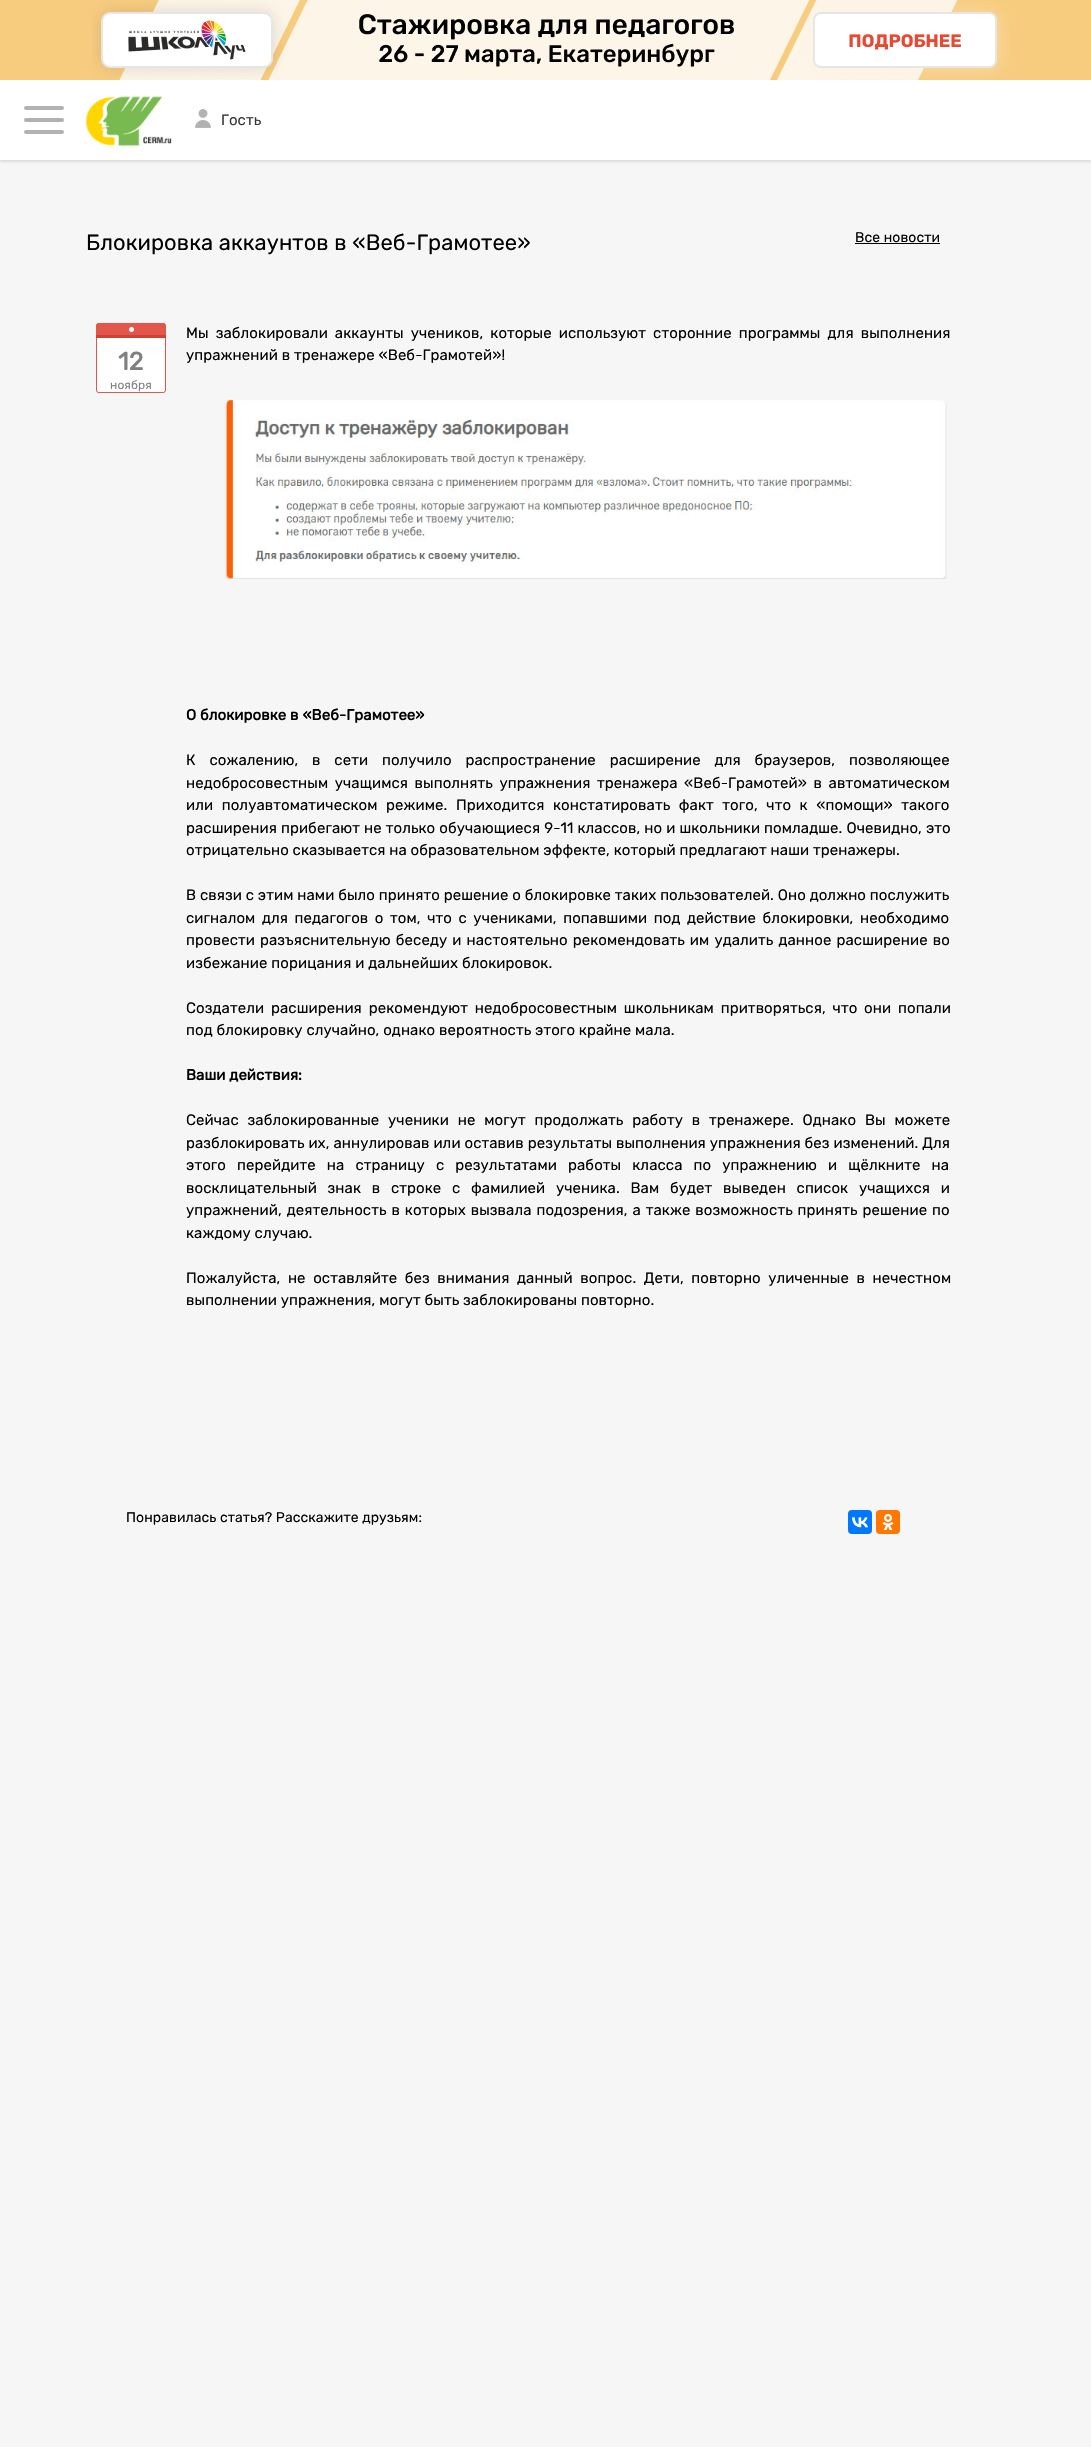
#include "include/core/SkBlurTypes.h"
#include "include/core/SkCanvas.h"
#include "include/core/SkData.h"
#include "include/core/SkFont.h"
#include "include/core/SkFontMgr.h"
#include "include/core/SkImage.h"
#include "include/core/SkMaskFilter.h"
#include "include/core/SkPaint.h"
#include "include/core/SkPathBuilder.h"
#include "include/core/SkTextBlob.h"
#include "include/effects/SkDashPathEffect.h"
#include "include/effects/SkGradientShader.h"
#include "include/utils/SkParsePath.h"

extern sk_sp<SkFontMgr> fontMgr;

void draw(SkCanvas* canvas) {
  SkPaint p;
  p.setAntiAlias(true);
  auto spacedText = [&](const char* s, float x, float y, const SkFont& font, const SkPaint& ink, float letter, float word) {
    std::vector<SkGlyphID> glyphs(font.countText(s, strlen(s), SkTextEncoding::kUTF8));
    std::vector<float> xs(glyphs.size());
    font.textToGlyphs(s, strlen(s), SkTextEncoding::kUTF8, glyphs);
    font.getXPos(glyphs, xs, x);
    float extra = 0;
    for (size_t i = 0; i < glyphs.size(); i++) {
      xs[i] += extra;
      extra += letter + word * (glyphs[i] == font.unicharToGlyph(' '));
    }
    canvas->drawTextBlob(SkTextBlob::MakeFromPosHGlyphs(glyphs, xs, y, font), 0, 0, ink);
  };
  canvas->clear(SkColorSetRGB(246, 246, 246));
  p.setColor(SkColorSetRGB(247, 204, 127));
  canvas->drawRect(SkRect::MakeLTRB(0, 0, 1091, 80), p);
  canvas->drawImageRect(SkImages::DeferredFromEncodedData(SkData::MakeFromFileName("images/1.png")), SkRect::MakeLTRB(92, 0, 1009, 80), SkSamplingOptions());
  p.setColor(SkColorSetARGB(26, 0, 0, 0));
  p.setMaskFilter(SkMaskFilter::MakeBlur(kNormal_SkBlurStyle, 1));
  canvas->drawRect(SkRect::MakeLTRB(0, 82, 1091, 162), p);
  p.setMaskFilter(nullptr);
  p.setColor(SK_ColorWHITE);
  canvas->drawRect(SkRect::MakeLTRB(0, 80, 1091, 160), p);
  canvas->drawImageRect(SkImages::DeferredFromEncodedData(SkData::MakeFromFileName("images/2.png")), SkRect::MakeLTRB(85, 96, 172, 146), SkSamplingOptions());
  p.setColor(SkColorSetRGB(178, 178, 178));
  canvas->drawRoundRect(SkRect::MakeLTRB(24, 106, 64, 110), 2, 2, p);
  canvas->drawRoundRect(SkRect::MakeLTRB(24, 118, 64, 122), 2, 2, p);
  canvas->drawRoundRect(SkRect::MakeLTRB(24, 130, 64, 134), 2, 2, p);
  canvas->drawImageRect(SkImages::DeferredFromEncodedData(SkData::MakeFromFileName("images/3.png")), SkRect::MakeLTRB(195, 109, 211, 128), SkSamplingOptions());
  p.setColor(SK_ColorBLACK);
  canvas->drawRect(SkRect::MakeLTRB(855, 243, 940, 244), p);
  canvas->drawImageRect(SkImages::DeferredFromEncodedData(SkData::MakeFromFileName("images/4.png")), SkRect::MakeLTRB(96, 323, 166, 393), SkSamplingOptions());
  canvas->drawImageRect(SkImages::DeferredFromEncodedData(SkData::MakeFromFileName("images/5.png")), SkRect::MakeLTRB(224, 400, 947, 579), SkSamplingOptions());
  p.setColor(SkColorSetRGB(0, 119, 255));
  canvas->drawRoundRect(SkRect::MakeLTRB(848, 1510, 872, 1534), 4, 4, p);
  canvas->drawImageRect(SkImages::DeferredFromEncodedData(SkData::MakeFromFileName("images/6.png")), SkRect::MakeLTRB(852, 1517, 868, 1528), SkSamplingOptions());
  p.setColor(SkColorSetRGB(255, 119, 0));
  canvas->drawRoundRect(SkRect::MakeLTRB(876, 1510, 900, 1534), 4, 4, p);
  canvas->drawImageRect(SkImages::DeferredFromEncodedData(SkData::MakeFromFileName("images/7.png")), SkRect::MakeLTRB(882, 1514, 894, 1530), SkSamplingOptions());
  SkFont font1(fontMgr->matchFamilyStyle("Rubik", SkFontStyle::Normal()), 15);
  font1.setSubpixel(true);
  p.setColor(SkColorSetRGB(53, 53, 57));
  spacedText("Гость", 221, 125, font1, p, 0.1f, 0);
  SkFont font2(fontMgr->matchFamilyStyle("Rubik", SkFontStyle::Normal()), 22);
  font2.setSubpixel(true);
  p.setColor(SK_ColorBLACK);
  spacedText("Блокировка аккаунтов в «Веб-Грамотее»", 86, 250, font2, p, 0.1f, 0);
  SkFont font3(fontMgr->matchFamilyStyle("Rubik", SkFontStyle::Normal()), 14);
  font3.setSubpixel(true);
  spacedText("Все новости", 855, 242, font3, p, 0.1f, 0);
  SkFont font4(fontMgr->matchFamilyStyle("Rubik", SkFontStyle::Bold()), 25);
  font4.setSubpixel(true);
  p.setColor(SkColorSetRGB(128, 128, 128));
  spacedText("12", 118, 370, font4, p, 0.1f, 0);
  SkFont font5(fontMgr->matchFamilyStyle("Rubik", SkFontStyle::Normal()), 12);
  font5.setSubpixel(true);
  spacedText("ноября", 110, 389, font5, p, 0.1f, 0);
  p.setColor(SK_ColorBLACK);
  spacedText("Мы заблокировали аккаунты учеников, которые используют сторонние программы для выполнения", 186, 338, font1, p, 0.1f, 3.25f);
  spacedText("упражнений в тренажере «Веб-Грамотей»!", 186, 360, font1, p, 0.1f, 0);
  SkFont font6(fontMgr->matchFamilyStyle("Rubik", SkFontStyle::Bold()), 15);
  font6.setSubpixel(true);
  spacedText("О блокировке в «Веб-Грамотее»", 186, 720, font6, p, 0.1f, 0);
  spacedText("К сожалению, в сети получило распространение расширение для браузеров, позволяющее", 186, 765, font1, p, 0.1f, 10);
  spacedText("недобросовестным учащимся выполнять упражнения тренажера «Веб-Грамотей» в автоматическом", 186, 788, font1, p, 0.1f, 2.75f);
  spacedText("или полуавтоматическом режиме. Приходится констатировать факт того, что к «помощи» такого", 186, 810, font1, p, 0.1f, 4.75f);
  spacedText("расширения прибегают не только обучающиеся 9-11 классов, но и школьники помладше. Очевидно, это", 186, 833, font1, p, 0.1f, 0.2f);
  spacedText("отрицательно сказывается на образовательном эффекте, который предлагают наши тренажеры.", 186, 855, font1, p, 0.1f, 0);
  spacedText("В связи с этим нами было принято решение о блокировке таких пользователей. Оно должно послужить", 186, 900, font1, p, 0.1f, 0);
  spacedText("сигналом для педагогов о том, что с учениками, попавшими под действие блокировки, необходимо", 186, 923, font1, p, 0.1f, 2.75f);
  spacedText("провести разъяснительную беседу и настоятельно рекомендовать им удалить данное расширение во", 186, 945, font1, p, 0.1f, 1.25f);
  spacedText("избежание порицания и дальнейших блокировок.", 186, 968, font1, p, 0.1f, 0);
  spacedText("Создатели расширения рекомендуют недобросовестным школьникам притворяться, что они попали", 186, 1013, font1, p, 0.1f, 3);
  spacedText("под блокировку случайно, однако вероятность этого крайне мала.", 186, 1035, font1, p, 0.1f, 0);
  spacedText("Ваши действия:", 186, 1080, font6, p, 0.1f, 0);
  spacedText("Сейчас заблокированные ученики не могут продолжать работу в тренажере. Однако Вы можете", 186, 1125, font1, p, 0.1f, 5);
  spacedText("разблокировать их, аннулировав или оставив результаты выполнения упражнения без изменений. Для", 186, 1148, font1, p, 0.1f, 0.1f);
  spacedText("этого перейдите на страницу с результатами работы класса по упражнению и щёлкните на", 186, 1170, font1, p, 0.1f, 7.25f);
  spacedText("восклицательный знак в строке с фамилией ученика. Вам будет выведен список учащихся и", 186, 1193, font1, p, 0.1f, 6.9f);
  spacedText("упражнений, деятельность в которых вызвала подозрения, а также возможность принять решение по", 186, 1215, font1, p, 0.1f, 1.1f);
  spacedText("каждому случаю.", 186, 1238, font1, p, 0.1f, 0);
  spacedText("Пожалуйста, не оставляйте без внимания данный вопрос. Дети, повторно уличенные в нечестном", 186, 1283, font1, p, 0.1f, 3.75f);
  spacedText("выполнении упражнения, могут быть заблокированы повторно.", 186, 1305, font1, p, 0.1f, 0);
  spacedText("Понравилась статья? Расскажите друзьям:", 126, 1522, font3, p, 0.1f, 0);
}
